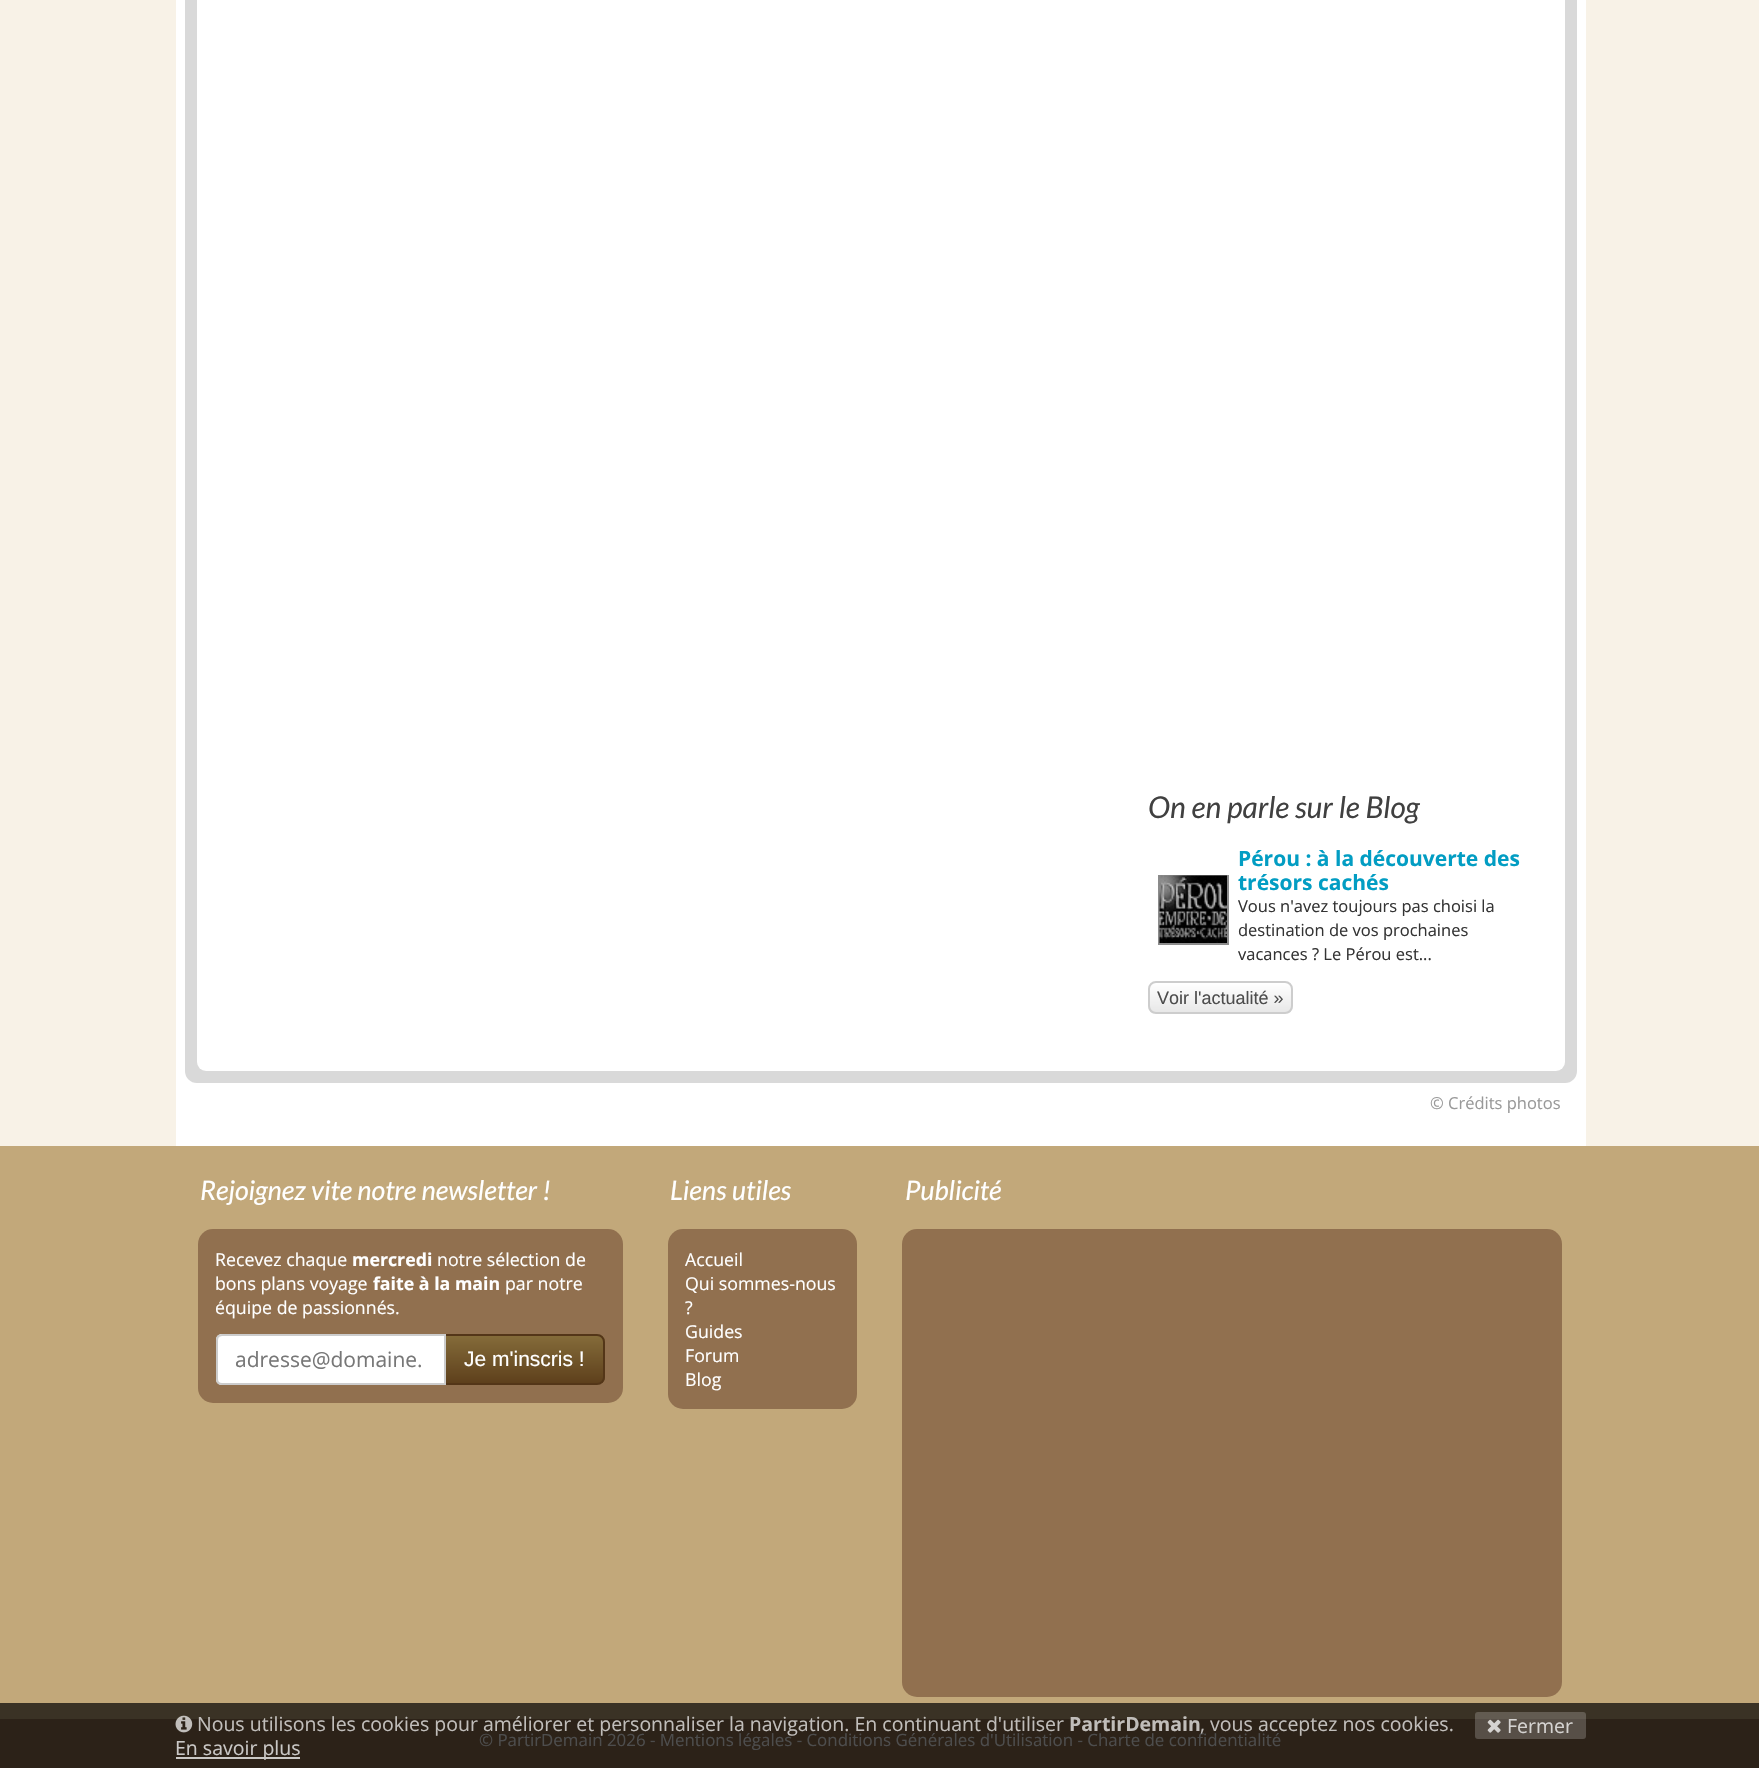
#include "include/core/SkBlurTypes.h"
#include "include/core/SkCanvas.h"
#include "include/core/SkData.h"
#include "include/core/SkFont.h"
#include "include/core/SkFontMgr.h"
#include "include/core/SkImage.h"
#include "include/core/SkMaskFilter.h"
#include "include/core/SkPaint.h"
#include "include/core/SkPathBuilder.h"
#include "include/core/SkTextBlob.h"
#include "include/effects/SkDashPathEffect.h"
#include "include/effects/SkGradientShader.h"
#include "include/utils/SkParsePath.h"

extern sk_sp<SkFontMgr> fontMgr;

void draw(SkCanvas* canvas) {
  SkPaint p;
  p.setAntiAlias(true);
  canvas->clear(SkColorSetRGB(248, 242, 231));
  p.setColor(SK_ColorWHITE);
  canvas->drawRect(SkRect::MakeLTRB(176, 0, 1586, 1146), p);
  p.setColor(SkColorSetRGB(217, 217, 217));
  canvas->drawRoundRect(SkRect::MakeLTRB(185, -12, 1577, 1083), 12, 12, p);
  p.setColor(SK_ColorWHITE);
  canvas->drawRoundRect(SkRect::MakeLTRB(197, -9, 1565, 1071), 9, 9, p);
  p.setStyle(SkPaint::kStroke_Style);
  p.setStrokeWidth(2);
  p.setColor(SkColorSetRGB(140, 140, 140));
  canvas->drawRect(SkRect::MakeLTRB(1159, 876, 1228, 944), p);
  canvas->drawImageRect(SkImages::DeferredFromEncodedData(SkData::MakeFromFileName("images/1.png")), SkRect::MakeLTRB(1159, 875, 1227, 943), SkSamplingOptions());
  canvas->save();
  canvas->clipPath(SkPathBuilder().moveTo(1156, 981).lineTo(1285, 981).cubicTo(1289.5f, 981, 1293, 984.5f, 1293, 989).lineTo(1293, 1006).cubicTo(1293, 1010.5f, 1289.5f, 1014, 1285, 1014).lineTo(1156, 1014).cubicTo(1151.5f, 1014, 1148, 1010.5f, 1148, 1006).lineTo(1148, 989).cubicTo(1148, 984.5f, 1151.5f, 981, 1156, 981).close().detach(), true);
  p.setStyle(SkPaint::kFill_Style);
  {
    const SkColor colors[] = {SK_ColorWHITE, SkColorSetRGB(231, 231, 231)};
    const float stops[] = {0, 1};
    const SkPoint ends[] = {{1220, 983}, {1220, 1013}};
    p.setShader(SkGradientShader::MakeLinear(ends, colors, stops, 2, SkTileMode::kClamp));
    p.setAlpha(255);
  }
  canvas->drawRect(SkRect::MakeLTRB(1148, 983, 1293, 1013), p);
  canvas->restore();
  p.setStyle(SkPaint::kStroke_Style);
  p.setShader(nullptr);
  p.setColor(SkColorSetRGB(205, 205, 205));
  canvas->drawRoundRect(SkRect::MakeLTRB(1149, 982, 1292, 1013), 7, 7, p);
  p.setStyle(SkPaint::kFill_Style);
  p.setColor(SkColorSetRGB(194, 168, 122));
  canvas->drawRect(SkRect::MakeLTRB(0, 1146, 1759, 1703), p);
  p.setColor(SkColorSetRGB(58, 50, 37));
  canvas->drawRect(SkRect::MakeLTRB(0, 1703, 1759, 1719), p);
  p.setColor(SkColorSetRGB(145, 112, 79));
  canvas->drawRoundRect(SkRect::MakeLTRB(198, 1229, 623, 1403), 15, 15, p);
  canvas->save();
  canvas->clipPath(SkPathBuilder().moveTo(444, 1334).lineTo(597, 1334).cubicTo(601.5f, 1334, 605, 1337.5f, 605, 1342).lineTo(605, 1377).cubicTo(605, 1381.5f, 601.5f, 1385, 597, 1385).lineTo(444, 1385).close().detach(), true);
  {
    const SkColor colors[] = {SkColorSetRGB(133, 108, 58), SkColorSetRGB(94, 64, 28)};
    const float stops[] = {0, 1};
    const SkPoint ends[] = {{524, 1335}, {524, 1383}};
    p.setShader(SkGradientShader::MakeLinear(ends, colors, stops, 2, SkTileMode::kClamp));
    p.setAlpha(255);
  }
  canvas->drawRect(SkRect::MakeLTRB(446, 1335, 605, 1383), p);
  canvas->restore();
  p.setStyle(SkPaint::kStroke_Style);
  p.setShader(nullptr);
  p.setColor(SkColorSetRGB(84, 54, 24));
  canvas->drawPath(SkPathBuilder().moveTo(445, 1335).lineTo(597, 1335).cubicTo(601, 1335, 604, 1338, 604, 1342).lineTo(604, 1377).cubicTo(604, 1381, 601, 1384, 597, 1384).lineTo(445, 1384).close().detach(), p);
  p.setStyle(SkPaint::kFill_Style);
  p.setColor(SK_ColorWHITE);
  canvas->drawPath(SkPathBuilder().moveTo(222, 1334).lineTo(446, 1334).lineTo(446, 1385).lineTo(222, 1385).cubicTo(218.5f, 1385, 216, 1382.5f, 216, 1379).lineTo(216, 1340).cubicTo(216, 1336.5f, 218.5f, 1334, 222, 1334).close().detach(), p);
  p.setColor(SkColorSetRGB(236, 236, 236));
  canvas->drawPath(SkPathBuilder().moveTo(222, 1336).lineTo(444, 1336).lineTo(444, 1335).lineTo(223, 1335).cubicTo(220, 1335, 218, 1338, 218, 1341).cubicTo(218, 1339, 220, 1336, 222, 1336).close().detach(), p);
  p.setStyle(SkPaint::kStroke_Style);
  p.setColor(SkColorSetRGB(204, 204, 204));
  canvas->drawPath(SkPathBuilder().moveTo(222, 1335).lineTo(445, 1335).lineTo(445, 1384).lineTo(222, 1384).cubicTo(219, 1384, 217, 1382, 217, 1379).lineTo(217, 1340).cubicTo(217, 1337, 219, 1335, 222, 1335).close().detach(), p);
  p.setStyle(SkPaint::kFill_Style);
  p.setColor(SkColorSetRGB(145, 112, 79));
  canvas->drawRoundRect(SkRect::MakeLTRB(668, 1229, 857, 1409), 15, 15, p);
  canvas->drawRoundRect(SkRect::MakeLTRB(902, 1229, 1562, 1697), 15, 15, p);
  p.setColor(SkColorSetRGB(44, 34, 24));
  canvas->drawRect(SkRect::MakeLTRB(0, 1719, 1759, 1768), p);
  canvas->drawImageRect(SkImages::DeferredFromEncodedData(SkData::MakeFromFileName("images/2.png")), SkRect::MakeLTRB(175, 1715, 193, 1733), SkSamplingOptions());
  p.setColor(SkColorSetARGB(51, 255, 255, 255));
  canvas->drawRoundRect(SkRect::MakeLTRB(1475, 1712, 1586, 1739), 3, 3, p);
  canvas->drawImageRect(SkImages::DeferredFromEncodedData(SkData::MakeFromFileName("images/3.png")), SkRect::MakeLTRB(1487, 1719, 1501, 1733), SkSamplingOptions());
  p.setColor(SkColorSetRGB(202, 200, 197));
  canvas->drawRect(SkRect::MakeLTRB(176, 1757, 300, 1759), p);
  SkFont font1(fontMgr->matchFamilyStyle("Lato", SkFontStyle::Italic()), 30);
  font1.setSubpixel(true);
  p.setColor(SkColorSetRGB(64, 64, 64));
  canvas->drawString("On en parle sur le Blog", 1148, 818, font1, p);
  SkFont font2(fontMgr->matchFamilyStyle("Open Sans", SkFontStyle::Bold()), 21);
  font2.setSubpixel(true);
  p.setColor(SkColorSetRGB(2, 157, 195));
  canvas->drawString("Pérou : à la découverte des", 1238, 866, font2, p);
  canvas->drawString("trésors cachés", 1238, 890, font2, p);
  SkFont font3(fontMgr->matchFamilyStyle("Open Sans", SkFontStyle::Normal()), 16.5f);
  font3.setSubpixel(true);
  p.setColor(SkColorSetRGB(52, 52, 52));
  canvas->drawString("Vous n'avez toujours pas choisi la", 1238, 912, font3, p);
  canvas->drawString("destination de vos prochaines", 1238, 936, font3, p);
  canvas->drawString("vacances ? Le Pérou est...", 1238, 960, font3, p);
  SkFont font4(fontMgr->matchFamilyStyle("Liberation Sans", SkFontStyle::Normal()), 18);
  font4.setSubpixel(true);
  p.setColor(SkColorSetRGB(77, 77, 77));
  canvas->drawString("Voir l'actualité »", 1157, 1004, font4, p);
  p.setColor(SkColorSetRGB(153, 153, 153));
  canvas->drawString("© Crédits photos", 1430, 1109, font3, p);
  SkFont font5(fontMgr->matchFamilyStyle("Lato", SkFontStyle::Italic()), 27);
  font5.setSubpixel(true);
  p.setColor(SK_ColorWHITE);
  canvas->drawString("Rejoignez vite notre newsletter !", 200, 1200, font5, p);
  SkFont font6(fontMgr->matchFamilyStyle("Open Sans", SkFontStyle::Normal()), 17.75f);
  font6.setSubpixel(true);
  canvas->drawString("Recevez chaque", 215, 1266, font6, p);
  SkFont font7(fontMgr->matchFamilyStyle("Open Sans", SkFontStyle::Bold()), 17.75f);
  font7.setSubpixel(true);
  canvas->drawString("mercredi", 352, 1266, font7, p);
  canvas->drawString("notre sélection de", 437, 1266, font6, p);
  canvas->drawString("bons plans voyage", 215, 1290, font6, p);
  canvas->drawString("faite à la main", 373, 1290, font7, p);
  canvas->drawString("par notre", 505, 1290, font6, p);
  canvas->drawString("équipe de passionnés.", 215, 1314, font6, p);
  SkFont font8(fontMgr->matchFamilyStyle("Open Sans", SkFontStyle::Normal()), 21);
  font8.setSubpixel(true);
  p.setColor(SkColorSetRGB(119, 119, 119));
  canvas->drawString("adresse@domaine.", 235, 1367, font8, p);
  SkFont font9(fontMgr->matchFamilyStyle("Liberation Sans", SkFontStyle::Normal()), 21);
  font9.setSubpixel(true);
  p.setColor(SK_ColorWHITE);
  canvas->drawString("Je m'inscris !", 464, 1366, font9, p);
  canvas->drawString("Liens utiles", 670, 1200, font5, p);
  canvas->drawString("Accueil", 685, 1266, font6, p);
  canvas->drawString("Qui sommes-nous", 685, 1290, font6, p);
  canvas->drawString("?", 685, 1314, font6, p);
  canvas->drawString("Guides", 685, 1338, font6, p);
  canvas->drawString("Forum", 685, 1362, font6, p);
  canvas->drawString("Blog", 685, 1386, font6, p);
  canvas->drawString("Publicité", 905, 1200, font5, p);
  SkFont font10(fontMgr->matchFamilyStyle("Open Sans", SkFontStyle::Normal()), 16.9f);
  font10.setSubpixel(true);
  p.setColor(SkColorSetRGB(77, 77, 77));
  canvas->drawString("© PartirDemain 2026 - Mentions légales - Conditions Générales d'Utilisation - Charte de confidentialité", 479, 1746, font10, p);
  SkFont font11(fontMgr->matchFamilyStyle("Open Sans", SkFontStyle::Normal()), 19.5f);
  font11.setSubpixel(true);
  p.setColor(SkColorSetRGB(192, 189, 186));
  canvas->drawString("Nous utilisons les cookies pour améliorer et personnaliser la navigation. En continuant d'utiliser", 197, 1731, font11, p);
  SkFont font12(fontMgr->matchFamilyStyle("Open Sans", SkFontStyle::Bold()), 19.5f);
  font12.setSubpixel(true);
  canvas->drawString("PartirDemain", 1069, 1731, font12, p);
  canvas->drawString(", vous acceptez nos cookies.", 1200, 1731, font11, p);
  p.setColor(SkColorSetRGB(213, 211, 209));
  canvas->drawString("Fermer", 1507, 1733, font11, p);
  p.setColor(SkColorSetRGB(202, 200, 198));
  canvas->drawString("En savoir plus", 175, 1755, font11, p);
}
